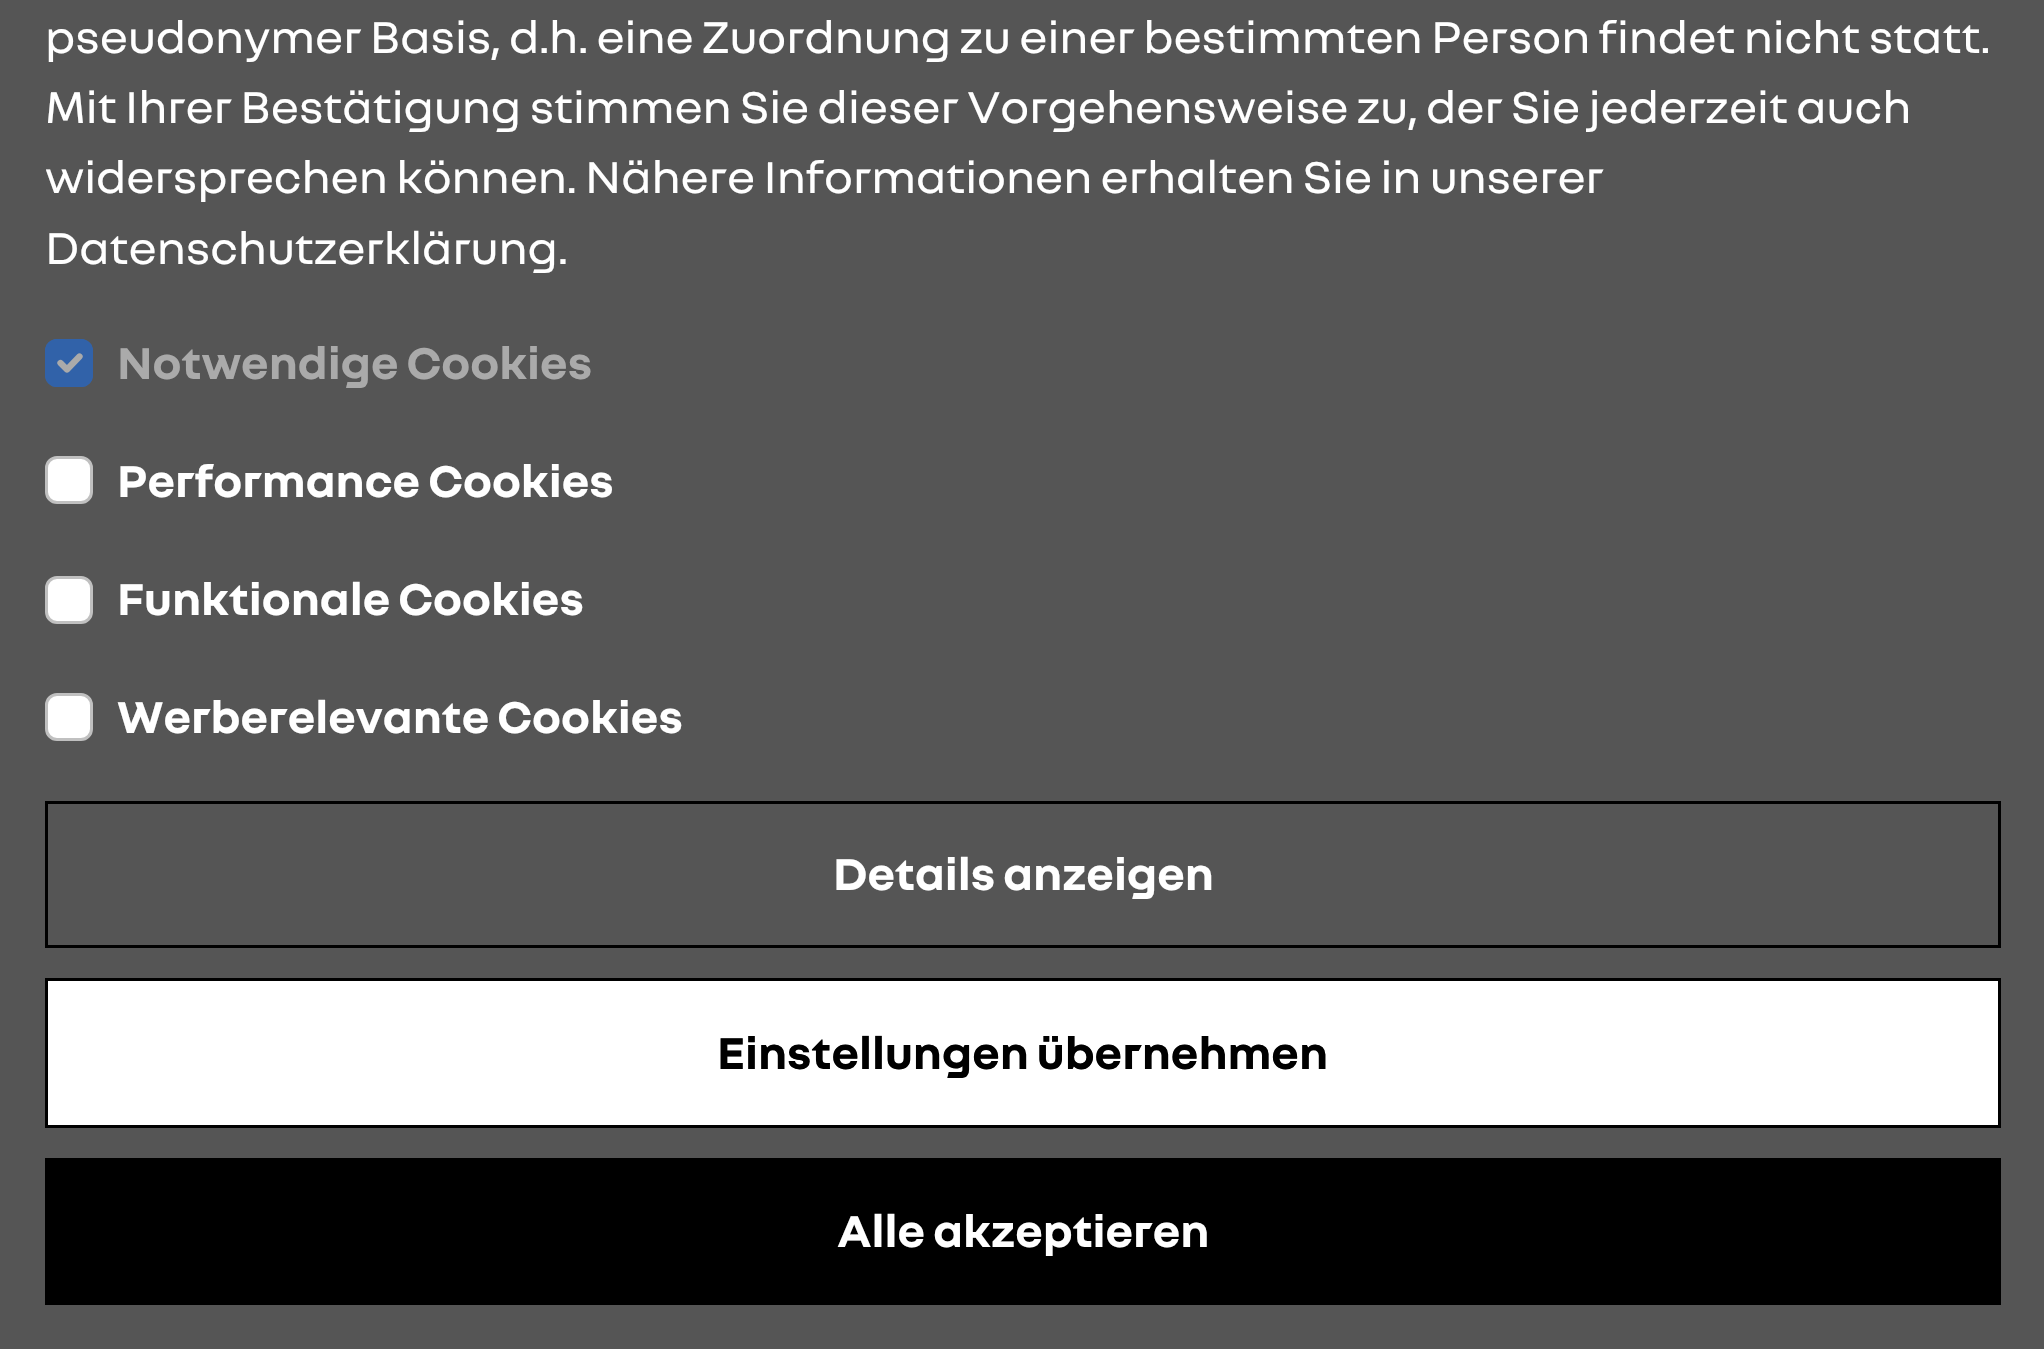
#include "include/core/SkBlurTypes.h"
#include "include/core/SkCanvas.h"
#include "include/core/SkData.h"
#include "include/core/SkFont.h"
#include "include/core/SkFontMgr.h"
#include "include/core/SkImage.h"
#include "include/core/SkMaskFilter.h"
#include "include/core/SkPaint.h"
#include "include/core/SkPathBuilder.h"
#include "include/core/SkTextBlob.h"
#include "include/effects/SkDashPathEffect.h"
#include "include/effects/SkGradientShader.h"
#include "include/utils/SkParsePath.h"

extern sk_sp<SkFontMgr> fontMgr;

void draw(SkCanvas* canvas) {
  SkPaint p;
  p.setAntiAlias(true);
  canvas->clear(SkColorSetRGB(85, 85, 85));
  p.setColor(SkColorSetRGB(49, 98, 169));
  canvas->drawRoundRect(SkRect::MakeLTRB(45, 339, 93, 387), 12, 12, p);
  p.setStyle(SkPaint::kStroke_Style);
  p.setStrokeWidth(6.3f);
  p.setStrokeCap(SkPaint::kRound_Cap);
  p.setStrokeJoin(SkPaint::kRound_Join);
  p.setColor(SkColorSetRGB(170, 170, 170));
  canvas->drawPath(SkPathBuilder().moveTo(60.5f, 363).lineTo(67, 369.5f).lineTo(79.5f, 356.5f).detach(), p);
  p.setStrokeWidth(3);
  p.setStrokeCap(SkPaint::kButt_Cap);
  p.setStrokeJoin(SkPaint::kMiter_Join);
  p.setColor(SkColorSetRGB(49, 98, 169));
  canvas->drawRoundRect(SkRect::MakeLTRB(46.5f, 340.5f, 91.5f, 385.5f), 10.5f, 10.5f, p);
  p.setStyle(SkPaint::kFill_Style);
  p.setColor(SK_ColorWHITE);
  canvas->drawRoundRect(SkRect::MakeLTRB(46.5f, 457.5f, 91.5f, 502.5f), 10.5f, 10.5f, p);
  p.setStyle(SkPaint::kStroke_Style);
  p.setColor(SkColorSetRGB(192, 192, 192));
  canvas->drawRoundRect(SkRect::MakeLTRB(46.5f, 457.5f, 91.5f, 502.5f), 10.5f, 10.5f, p);
  p.setStyle(SkPaint::kFill_Style);
  p.setColor(SK_ColorWHITE);
  canvas->drawRoundRect(SkRect::MakeLTRB(46.5f, 577.5f, 91.5f, 622.5f), 10.5f, 10.5f, p);
  p.setStyle(SkPaint::kStroke_Style);
  p.setColor(SkColorSetRGB(192, 192, 192));
  canvas->drawRoundRect(SkRect::MakeLTRB(46.5f, 577.5f, 91.5f, 622.5f), 10.5f, 10.5f, p);
  p.setStyle(SkPaint::kFill_Style);
  p.setColor(SK_ColorWHITE);
  canvas->drawRoundRect(SkRect::MakeLTRB(46.5f, 694.5f, 91.5f, 739.5f), 10.5f, 10.5f, p);
  p.setStyle(SkPaint::kStroke_Style);
  p.setColor(SkColorSetRGB(192, 192, 192));
  canvas->drawRoundRect(SkRect::MakeLTRB(46.5f, 694.5f, 91.5f, 739.5f), 10.5f, 10.5f, p);
  p.setColor(SK_ColorBLACK);
  canvas->drawRect(SkRect::MakeLTRB(46.5f, 802.5f, 1999.5f, 946.5f), p);
  p.setStyle(SkPaint::kFill_Style);
  p.setColor(SK_ColorWHITE);
  canvas->drawRect(SkRect::MakeLTRB(46.5f, 979.5f, 1999.5f, 1126.5f), p);
  p.setStyle(SkPaint::kStroke_Style);
  p.setColor(SK_ColorBLACK);
  canvas->drawRect(SkRect::MakeLTRB(46.5f, 979.5f, 1999.5f, 1126.5f), p);
  p.setStyle(SkPaint::kFill_Style);
  canvas->drawRect(SkRect::MakeLTRB(45, 1158, 2001, 1305), p);
  SkFont font1(fontMgr->matchFamilyStyle("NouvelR", SkFontStyle::Normal()), 48);
  font1.setSubpixel(true);
  p.setColor(SK_ColorWHITE);
  canvas->drawString("pseudonymer Basis, d.h. eine Zuordnung zu einer bestimmten Person findet nicht statt.", 45, 53, font1, p);
  canvas->drawString("Mit Ihrer Bestätigung stimmen Sie dieser Vorgehensweise zu, der Sie jederzeit auch", 45, 123, font1, p);
  canvas->drawString("widersprechen können. Nähere Informationen erhalten Sie in unserer", 45, 193, font1, p);
  canvas->drawString("Datenschutzerklärung.", 45, 264, font1, p);
  SkFont font2(fontMgr->matchFamilyStyle("NouvelR", SkFontStyle::Bold()), 48);
  font2.setSubpixel(true);
  p.setColor(SkColorSetRGB(170, 170, 170));
  canvas->drawString("Notwendige Cookies", 117, 379, font2, p);
  p.setColor(SK_ColorWHITE);
  canvas->drawString("Performance Cookies", 117, 497, font2, p);
  canvas->drawString("Funktionale Cookies", 117, 615, font2, p);
  canvas->drawString("Werberelevante Cookies", 117, 733, font2, p);
  canvas->drawString("Details anzeigen", 833, 890, font2, p);
  p.setColor(SK_ColorBLACK);
  canvas->drawString("Einstellungen übernehmen", 717, 1069, font2, p);
  p.setColor(SK_ColorWHITE);
  canvas->drawString("Alle akzeptieren", 837, 1247, font2, p);
}
